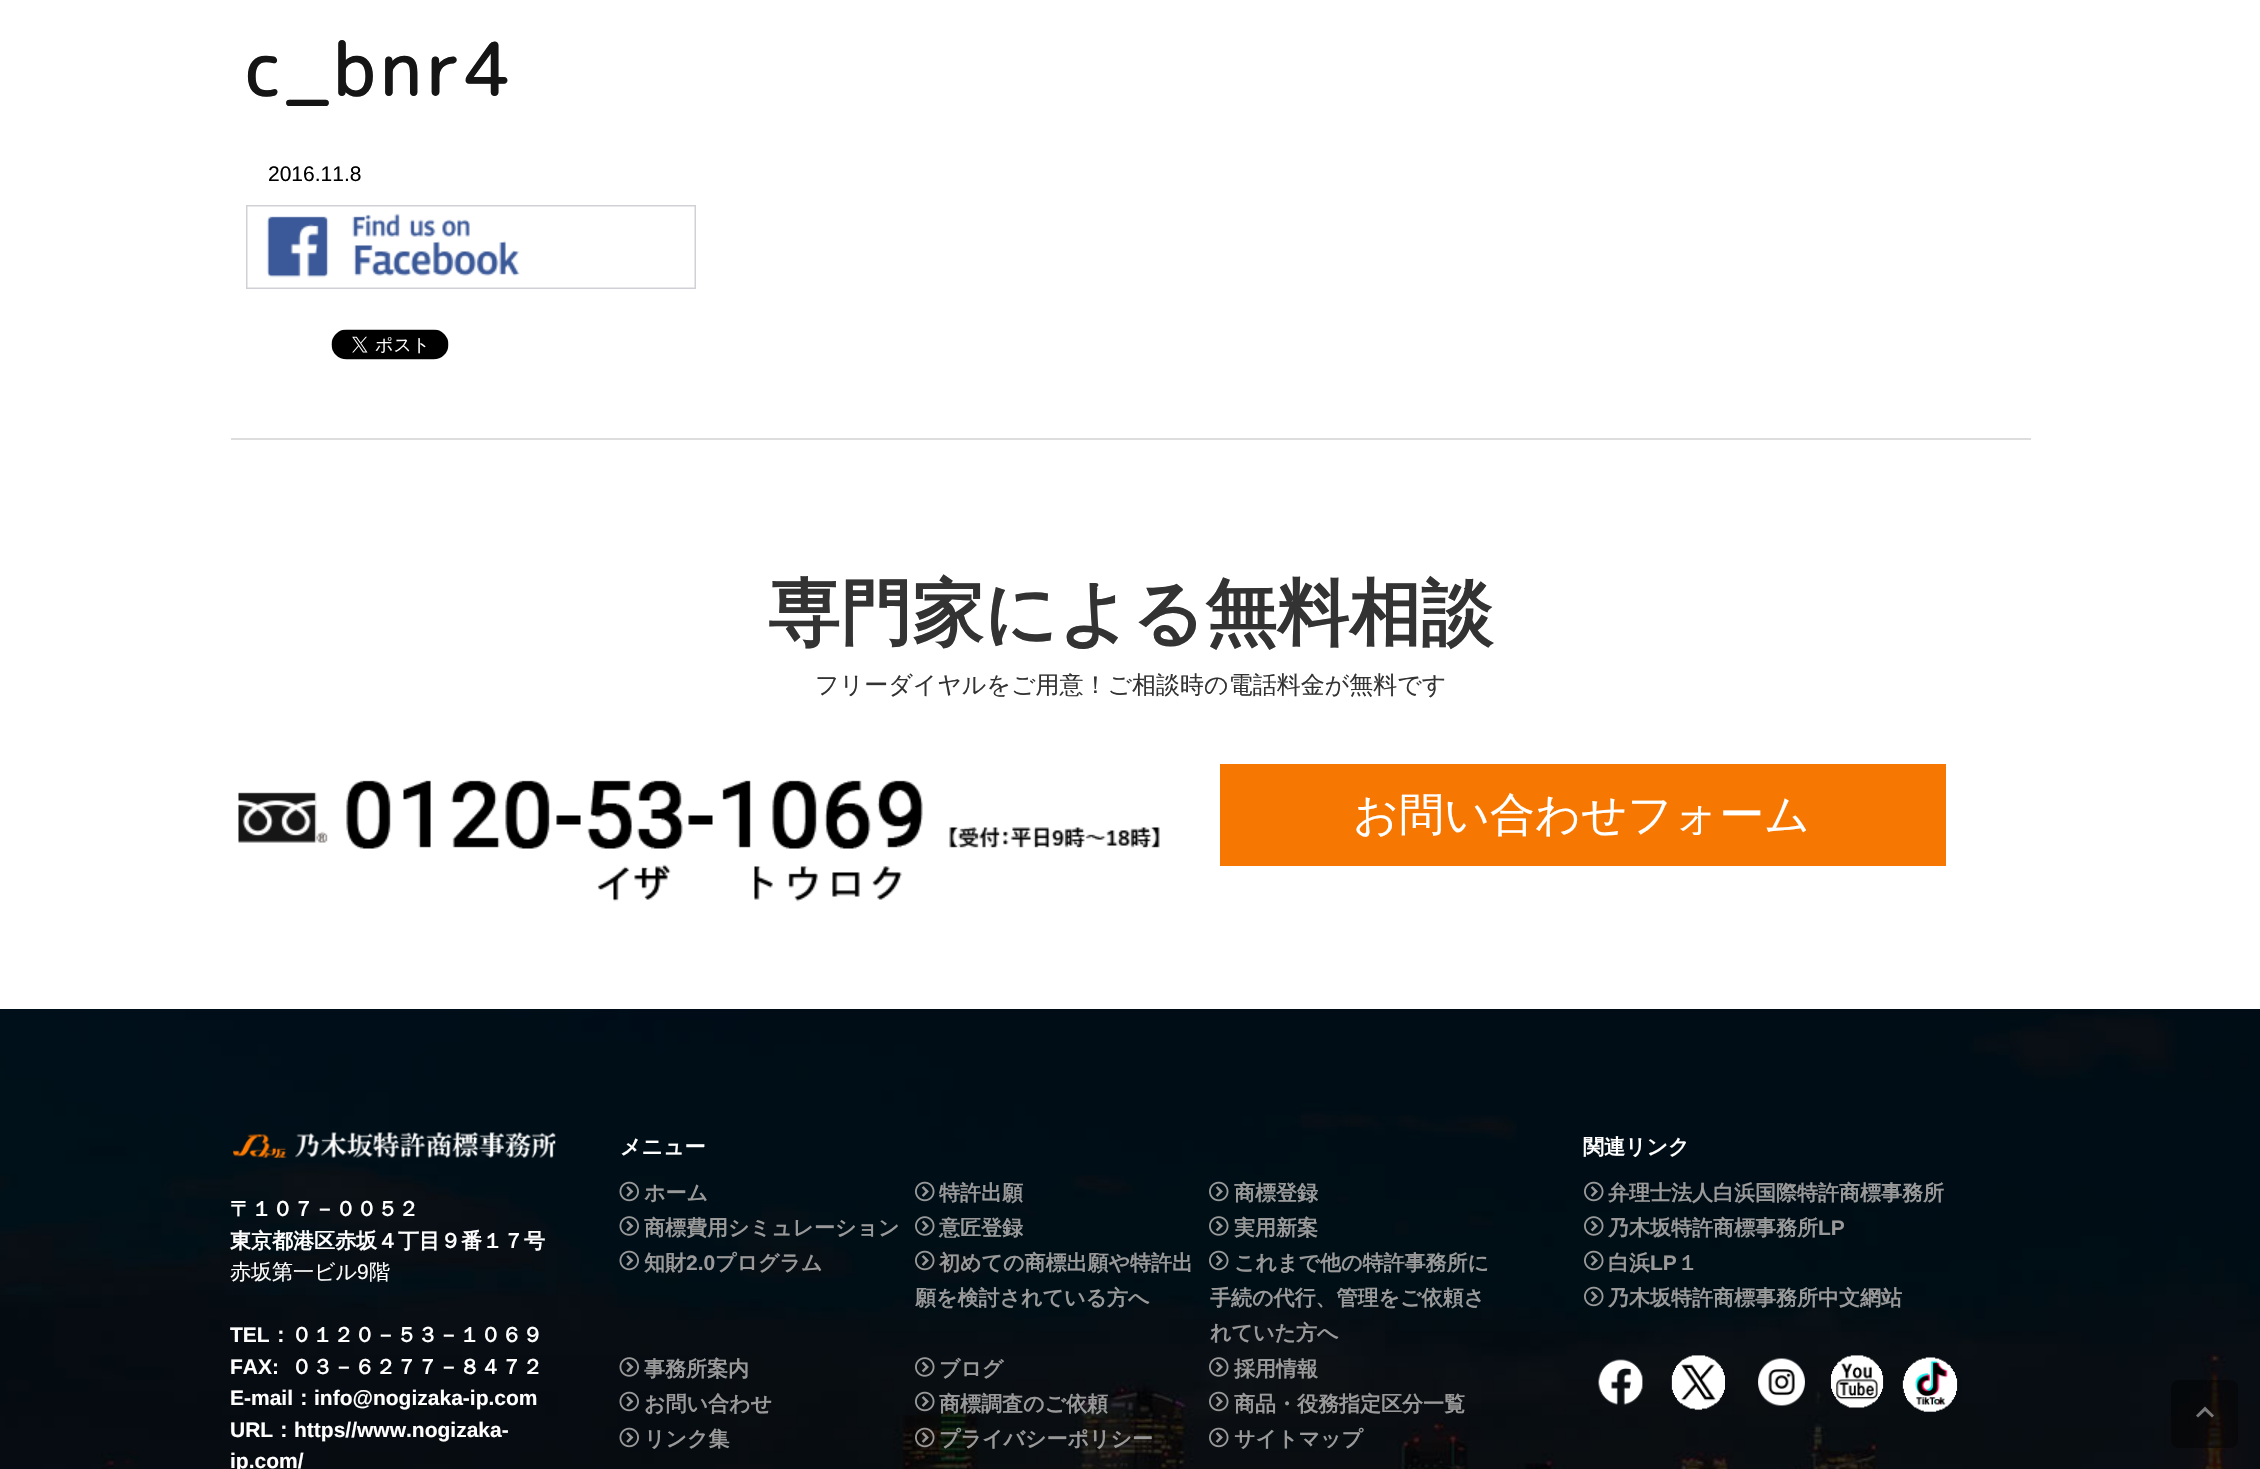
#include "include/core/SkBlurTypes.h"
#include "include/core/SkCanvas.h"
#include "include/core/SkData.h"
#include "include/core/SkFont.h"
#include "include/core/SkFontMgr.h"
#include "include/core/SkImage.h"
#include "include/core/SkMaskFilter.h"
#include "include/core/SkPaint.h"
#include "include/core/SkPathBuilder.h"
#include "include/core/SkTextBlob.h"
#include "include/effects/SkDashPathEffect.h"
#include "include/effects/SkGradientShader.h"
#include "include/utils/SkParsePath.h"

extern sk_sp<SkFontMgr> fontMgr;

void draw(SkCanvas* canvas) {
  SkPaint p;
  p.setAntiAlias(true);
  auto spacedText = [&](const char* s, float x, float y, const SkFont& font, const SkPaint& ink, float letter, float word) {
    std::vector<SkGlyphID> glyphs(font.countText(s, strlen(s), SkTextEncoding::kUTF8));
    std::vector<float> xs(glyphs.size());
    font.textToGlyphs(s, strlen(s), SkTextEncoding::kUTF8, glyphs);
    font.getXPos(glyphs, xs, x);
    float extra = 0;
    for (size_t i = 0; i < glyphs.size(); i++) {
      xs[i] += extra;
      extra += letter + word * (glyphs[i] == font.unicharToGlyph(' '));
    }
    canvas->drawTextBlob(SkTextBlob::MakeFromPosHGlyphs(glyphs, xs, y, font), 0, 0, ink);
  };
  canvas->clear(SK_ColorWHITE);
  canvas->drawImageRect(SkImages::DeferredFromEncodedData(SkData::MakeFromFileName("images/1.png")), SkRect::MakeLTRB(246, 205, 696, 289), SkSamplingOptions());
  canvas->drawImageRect(SkImages::DeferredFromEncodedData(SkData::MakeFromFileName("images/2.png")), SkRect::MakeLTRB(331, 329, 449, 360), SkSamplingOptions());
  p.setColor(SkColorSetRGB(221, 221, 221));
  canvas->drawRect(SkRect::MakeLTRB(231, 438, 2031, 440), p);
  canvas->drawImageRect(SkImages::DeferredFromEncodedData(SkData::MakeFromFileName("images/3.png")), SkRect::MakeLTRB(238, 780, 1160, 902), SkSamplingOptions());
  p.setColor(SkColorSetRGB(246, 119, 1));
  canvas->drawRect(SkRect::MakeLTRB(1220, 764, 1946, 866), p);
  canvas->drawImageRect(SkImages::DeferredFromEncodedData(SkData::MakeFromFileName("images/4.png")), SkRect::MakeLTRB(0, 1009, 2260, 1469), SkSamplingOptions());
  canvas->drawImageRect(SkImages::DeferredFromEncodedData(SkData::MakeFromFileName("images/5.png")), SkRect::MakeLTRB(233, 1132, 556, 1158), SkSamplingOptions());
  canvas->drawImageRect(SkImages::DeferredFromEncodedData(SkData::MakeFromFileName("images/6.png")), SkRect::MakeLTRB(619, 1181, 639, 1202), SkSamplingOptions());
  canvas->drawImageRect(SkImages::DeferredFromEncodedData(SkData::MakeFromFileName("images/7.png")), SkRect::MakeLTRB(915, 1181, 935, 1202), SkSamplingOptions());
  canvas->drawImageRect(SkImages::DeferredFromEncodedData(SkData::MakeFromFileName("images/8.png")), SkRect::MakeLTRB(1209, 1181, 1229, 1202), SkSamplingOptions());
  canvas->drawImageRect(SkImages::DeferredFromEncodedData(SkData::MakeFromFileName("images/9.png")), SkRect::MakeLTRB(619, 1216, 639, 1236), SkSamplingOptions());
  canvas->drawImageRect(SkImages::DeferredFromEncodedData(SkData::MakeFromFileName("images/10.png")), SkRect::MakeLTRB(915, 1216, 935, 1236), SkSamplingOptions());
  canvas->drawImageRect(SkImages::DeferredFromEncodedData(SkData::MakeFromFileName("images/10.png")), SkRect::MakeLTRB(1209, 1216, 1229, 1236), SkSamplingOptions());
  canvas->drawImageRect(SkImages::DeferredFromEncodedData(SkData::MakeFromFileName("images/11.png")), SkRect::MakeLTRB(619, 1250, 639, 1271), SkSamplingOptions());
  canvas->drawImageRect(SkImages::DeferredFromEncodedData(SkData::MakeFromFileName("images/12.png")), SkRect::MakeLTRB(915, 1250, 935, 1271), SkSamplingOptions());
  canvas->drawImageRect(SkImages::DeferredFromEncodedData(SkData::MakeFromFileName("images/13.png")), SkRect::MakeLTRB(1209, 1250, 1229, 1271), SkSamplingOptions());
  canvas->drawImageRect(SkImages::DeferredFromEncodedData(SkData::MakeFromFileName("images/14.png")), SkRect::MakeLTRB(619, 1357, 639, 1377), SkSamplingOptions());
  canvas->drawImageRect(SkImages::DeferredFromEncodedData(SkData::MakeFromFileName("images/15.png")), SkRect::MakeLTRB(915, 1357, 935, 1377), SkSamplingOptions());
  canvas->drawImageRect(SkImages::DeferredFromEncodedData(SkData::MakeFromFileName("images/16.png")), SkRect::MakeLTRB(1209, 1357, 1229, 1377), SkSamplingOptions());
  canvas->drawImageRect(SkImages::DeferredFromEncodedData(SkData::MakeFromFileName("images/17.png")), SkRect::MakeLTRB(619, 1391, 639, 1412), SkSamplingOptions());
  canvas->drawImageRect(SkImages::DeferredFromEncodedData(SkData::MakeFromFileName("images/18.png")), SkRect::MakeLTRB(915, 1391, 935, 1412), SkSamplingOptions());
  canvas->drawImageRect(SkImages::DeferredFromEncodedData(SkData::MakeFromFileName("images/19.png")), SkRect::MakeLTRB(1209, 1391, 1229, 1412), SkSamplingOptions());
  canvas->drawImageRect(SkImages::DeferredFromEncodedData(SkData::MakeFromFileName("images/20.png")), SkRect::MakeLTRB(619, 1427, 639, 1448), SkSamplingOptions());
  canvas->drawImageRect(SkImages::DeferredFromEncodedData(SkData::MakeFromFileName("images/21.png")), SkRect::MakeLTRB(915, 1427, 935, 1448), SkSamplingOptions());
  canvas->drawImageRect(SkImages::DeferredFromEncodedData(SkData::MakeFromFileName("images/22.png")), SkRect::MakeLTRB(1209, 1427, 1229, 1448), SkSamplingOptions());
  canvas->drawImageRect(SkImages::DeferredFromEncodedData(SkData::MakeFromFileName("images/23.png")), SkRect::MakeLTRB(1584, 1181, 1604, 1202), SkSamplingOptions());
  canvas->drawImageRect(SkImages::DeferredFromEncodedData(SkData::MakeFromFileName("images/24.png")), SkRect::MakeLTRB(1584, 1216, 1604, 1236), SkSamplingOptions());
  canvas->drawImageRect(SkImages::DeferredFromEncodedData(SkData::MakeFromFileName("images/25.png")), SkRect::MakeLTRB(1584, 1250, 1604, 1271), SkSamplingOptions());
  canvas->drawImageRect(SkImages::DeferredFromEncodedData(SkData::MakeFromFileName("images/26.png")), SkRect::MakeLTRB(1584, 1286, 1604, 1307), SkSamplingOptions());
  canvas->drawImageRect(SkImages::DeferredFromEncodedData(SkData::MakeFromFileName("images/27.png")), SkRect::MakeLTRB(1598, 1359, 1643, 1405), SkSamplingOptions());
  canvas->drawImageRect(SkImages::DeferredFromEncodedData(SkData::MakeFromFileName("images/28.png")), SkRect::MakeLTRB(1671, 1355, 1725, 1410), SkSamplingOptions());
  canvas->drawImageRect(SkImages::DeferredFromEncodedData(SkData::MakeFromFileName("images/29.png")), SkRect::MakeLTRB(1758, 1358, 1805, 1406), SkSamplingOptions());
  canvas->drawImageRect(SkImages::DeferredFromEncodedData(SkData::MakeFromFileName("images/30.png")), SkRect::MakeLTRB(1831, 1355, 1884, 1408), SkSamplingOptions());
  canvas->drawImageRect(SkImages::DeferredFromEncodedData(SkData::MakeFromFileName("images/31.png")), SkRect::MakeLTRB(1902, 1357, 1958, 1412), SkSamplingOptions());
  p.setColor(SkColorSetARGB(115, 0, 0, 0));
  canvas->drawRoundRect(SkRect::MakeLTRB(2171, 1380, 2238, 1448), 8, 8, p);
  p.setColor(SkColorSetARGB(115, 255, 255, 255));
  canvas->drawPath(SkPathBuilder().moveTo(2196, 1415.5f).lineTo(2198, 1417.5f).lineTo(2205, 1411).lineTo(2212, 1417.5f).lineTo(2214, 1415.5f).lineTo(2205, 1406.5f).close().detach(), p);
  SkFont font1(fontMgr->matchFamilyStyle("Rounded Mplus 1c", SkFontStyle::Bold()), 72);
  font1.setSubpixel(true);
  p.setColor(SkColorSetRGB(21, 21, 21));
  spacedText("c_bnr4", 245, 96, font1, p, 5.75f, 0);
  SkFont font2(fontMgr->matchFamilyStyle("Liberation Sans", SkFontStyle::Normal()), 21);
  font2.setSubpixel(true);
  p.setColor(SK_ColorBLACK);
  canvas->drawString("2016.11.8", 268, 181, font2, p);
  SkFont font3(fontMgr->matchFamilyStyle("WenQuanYi Zen Hei", SkFontStyle::Bold()), 72);
  font3.setSubpixel(true);
  p.setColor(SkColorSetRGB(51, 51, 51));
  canvas->drawString("専門家による無料相談", 768, 638, font3, p);
  SkFont font4(fontMgr->matchFamilyStyle("WenQuanYi Zen Hei", SkFontStyle(500, SkFontStyle::kNormal_Width, SkFontStyle::kUpright_Slant)), 24);
  font4.setSubpixel(true);
  canvas->drawString("フリーダイヤルをご用意！ご相談時の電話料金が無料です", 815, 693, font4, p);
  SkFont font5(fontMgr->matchFamilyStyle("WenQuanYi Zen Hei", SkFontStyle(500, SkFontStyle::kNormal_Width, SkFontStyle::kUpright_Slant)), 45);
  font5.setSubpixel(true);
  p.setColor(SK_ColorWHITE);
  canvas->drawString("お問い合わせフォーム", 1353, 830, font5, p);
  SkFont font6(fontMgr->matchFamilyStyle("WenQuanYi Zen Hei", SkFontStyle::Bold()), 21);
  font6.setSubpixel(true);
  canvas->drawString("〒１０７－００５２", 230, 1216, font6, p);
  canvas->drawString("東京都港区赤坂４丁目９番１７号", 230, 1248, font6, p);
  SkFont font7(fontMgr->matchFamilyStyle("WenQuanYi Zen Hei", SkFontStyle(500, SkFontStyle::kNormal_Width, SkFontStyle::kUpright_Slant)), 21);
  font7.setSubpixel(true);
  canvas->drawString("赤坂第一ビル", 230, 1279, font7, p);
  canvas->drawString("9", 357, 1279, font2, p);
  canvas->drawString("階", 369, 1279, font7, p);
  SkFont font8(fontMgr->matchFamilyStyle("Liberation Sans", SkFontStyle::Bold()), 21);
  font8.setSubpixel(true);
  canvas->drawString("TEL", 230, 1342, font8, p);
  canvas->drawString("：０１２０－５３－１０６９", 270, 1342, font6, p);
  canvas->drawString("FAX:", 230, 1374, font8, p);
  canvas->drawString("０３－６２７７－８４７２", 291, 1374, font6, p);
  canvas->drawString("E-mail", 230, 1405, font8, p);
  canvas->drawString("：", 293, 1405, font6, p);
  canvas->drawString("info@nogizaka-ip.com", 314, 1405, font8, p);
  canvas->drawString("URL", 230, 1437, font8, p);
  canvas->drawString("：", 273, 1437, font6, p);
  canvas->drawString("https//www.nogizaka-", 294, 1437, font8, p);
  canvas->drawString("ip.com/", 230, 1468, font8, p);
  canvas->drawString("メニュー", 620, 1154, font6, p);
  p.setColor(SkColorSetRGB(153, 153, 153));
  canvas->drawString("ホーム", 644, 1200, font6, p);
  canvas->drawString("特許出願", 939, 1200, font6, p);
  canvas->drawString("商標登録", 1234, 1200, font6, p);
  canvas->drawString("商標費用シミュレーション", 644, 1235, font6, p);
  canvas->drawString("意匠登録", 939, 1235, font6, p);
  canvas->drawString("実用新案", 1234, 1235, font6, p);
  canvas->drawString("知財", 644, 1270, font6, p);
  canvas->drawString("2.0", 686, 1270, font8, p);
  canvas->drawString("プログラム", 715, 1270, font6, p);
  canvas->drawString("初めての商標出願や特許出", 939, 1270, font6, p);
  canvas->drawString("願を検討されている方へ", 915, 1305, font6, p);
  canvas->drawString("これまで他の特許事務所に", 1234, 1270, font6, p);
  canvas->drawString("手続の代行、管理をご依頼さ", 1210, 1305, font6, p);
  canvas->drawString("れていた方へ", 1210, 1340, font6, p);
  canvas->drawString("事務所案内", 644, 1376, font6, p);
  canvas->drawString("ブログ", 939, 1376, font6, p);
  canvas->drawString("採用情報", 1234, 1376, font6, p);
  canvas->drawString("お問い合わせ", 644, 1411, font6, p);
  canvas->drawString("商標調査のご依頼", 939, 1411, font6, p);
  canvas->drawString("商品・役務指定区分一覧", 1234, 1411, font6, p);
  canvas->drawString("リンク集", 644, 1446, font6, p);
  canvas->drawString("プライバシーポリシー", 939, 1446, font6, p);
  canvas->drawString("サイトマップ", 1234, 1446, font6, p);
  p.setColor(SK_ColorWHITE);
  canvas->drawString("関連リンク", 1583, 1154, font6, p);
  p.setColor(SkColorSetRGB(153, 153, 153));
  canvas->drawString("弁理士法人白浜国際特許商標事務所", 1608, 1200, font6, p);
  canvas->drawString("乃木坂特許商標事務所", 1608, 1235, font6, p);
  canvas->drawString("LP", 1818, 1235, font8, p);
  canvas->drawString("白浜", 1608, 1270, font6, p);
  canvas->drawString("LP", 1650, 1270, font8, p);
  canvas->drawString("１", 1677, 1270, font6, p);
  canvas->drawString("乃木坂特許商標事務所中文網站", 1608, 1305, font6, p);
}
